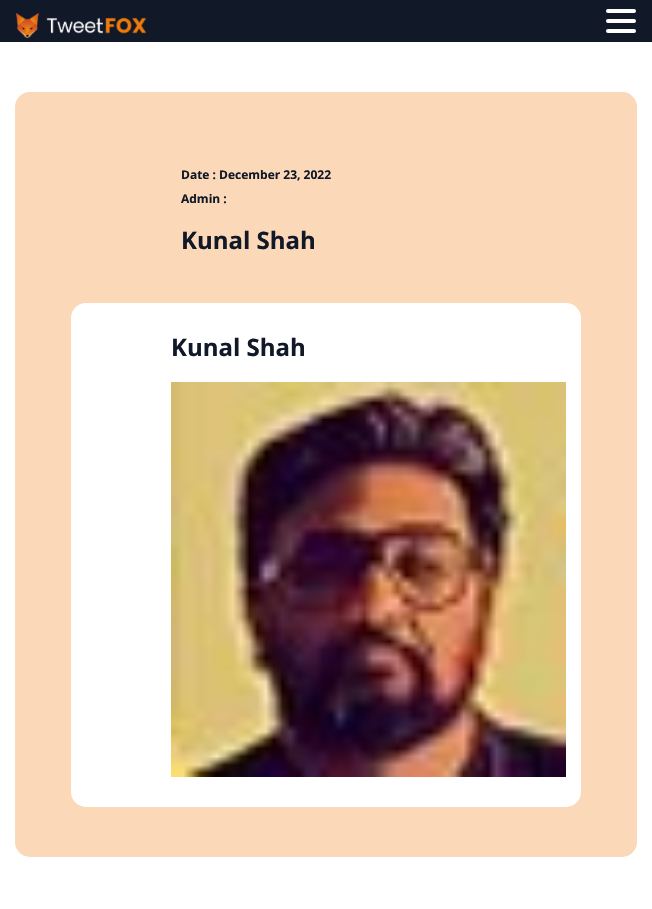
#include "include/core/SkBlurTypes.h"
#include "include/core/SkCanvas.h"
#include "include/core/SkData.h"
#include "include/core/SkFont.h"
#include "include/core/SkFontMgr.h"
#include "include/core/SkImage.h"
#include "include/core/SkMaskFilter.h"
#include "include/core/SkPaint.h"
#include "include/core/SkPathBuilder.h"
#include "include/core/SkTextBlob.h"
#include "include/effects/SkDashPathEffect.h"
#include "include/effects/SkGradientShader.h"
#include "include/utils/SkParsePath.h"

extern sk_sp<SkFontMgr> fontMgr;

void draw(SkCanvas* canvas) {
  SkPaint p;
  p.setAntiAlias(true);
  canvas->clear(SK_ColorWHITE);
  p.setColor(SkColorSetRGB(17, 24, 39));
  canvas->drawRect(SkRect::MakeLTRB(0, 0, 652, 42), p);
  canvas->drawImageRect(SkImages::DeferredFromEncodedData(SkData::MakeFromFileName("images/1.png")), SkRect::MakeLTRB(16, 12, 147, 38), SkSamplingOptions());
  p.setColor(SK_ColorWHITE);
  canvas->drawRoundRect(SkRect::MakeLTRB(606, 9, 636, 13), 2, 2, p);
  canvas->drawRoundRect(SkRect::MakeLTRB(606, 19, 636, 23), 2, 2, p);
  canvas->drawRoundRect(SkRect::MakeLTRB(606, 29, 636, 33), 2, 2, p);
  p.setColor(SkColorSetRGB(250, 216, 184));
  canvas->drawRoundRect(SkRect::MakeLTRB(15, 92, 637, 857), 15, 15, p);
  p.setColor(SK_ColorWHITE);
  canvas->drawRoundRect(SkRect::MakeLTRB(71, 303, 581, 807), 15, 15, p);
  canvas->drawImageRect(SkImages::DeferredFromEncodedData(SkData::MakeFromFileName("images/2.png")), SkRect::MakeLTRB(171, 382, 566, 777), SkSamplingOptions());
  SkFont font1(fontMgr->matchFamilyStyle("Open Sans", SkFontStyle::Bold()), 12);
  font1.setSubpixel(true);
  p.setColor(SkColorSetRGB(17, 24, 39));
  canvas->drawString("Date : December 23, 2022", 181, 179, font1, p);
  canvas->drawString("Admin :", 181, 203, font1, p);
  SkFont font2(fontMgr->matchFamilyStyle("Open Sans", SkFontStyle::Bold()), 24);
  font2.setSubpixel(true);
  canvas->drawString("Kunal Shah", 181, 249, font2, p);
  canvas->drawString("Kunal Shah", 171, 356, font2, p);
}
